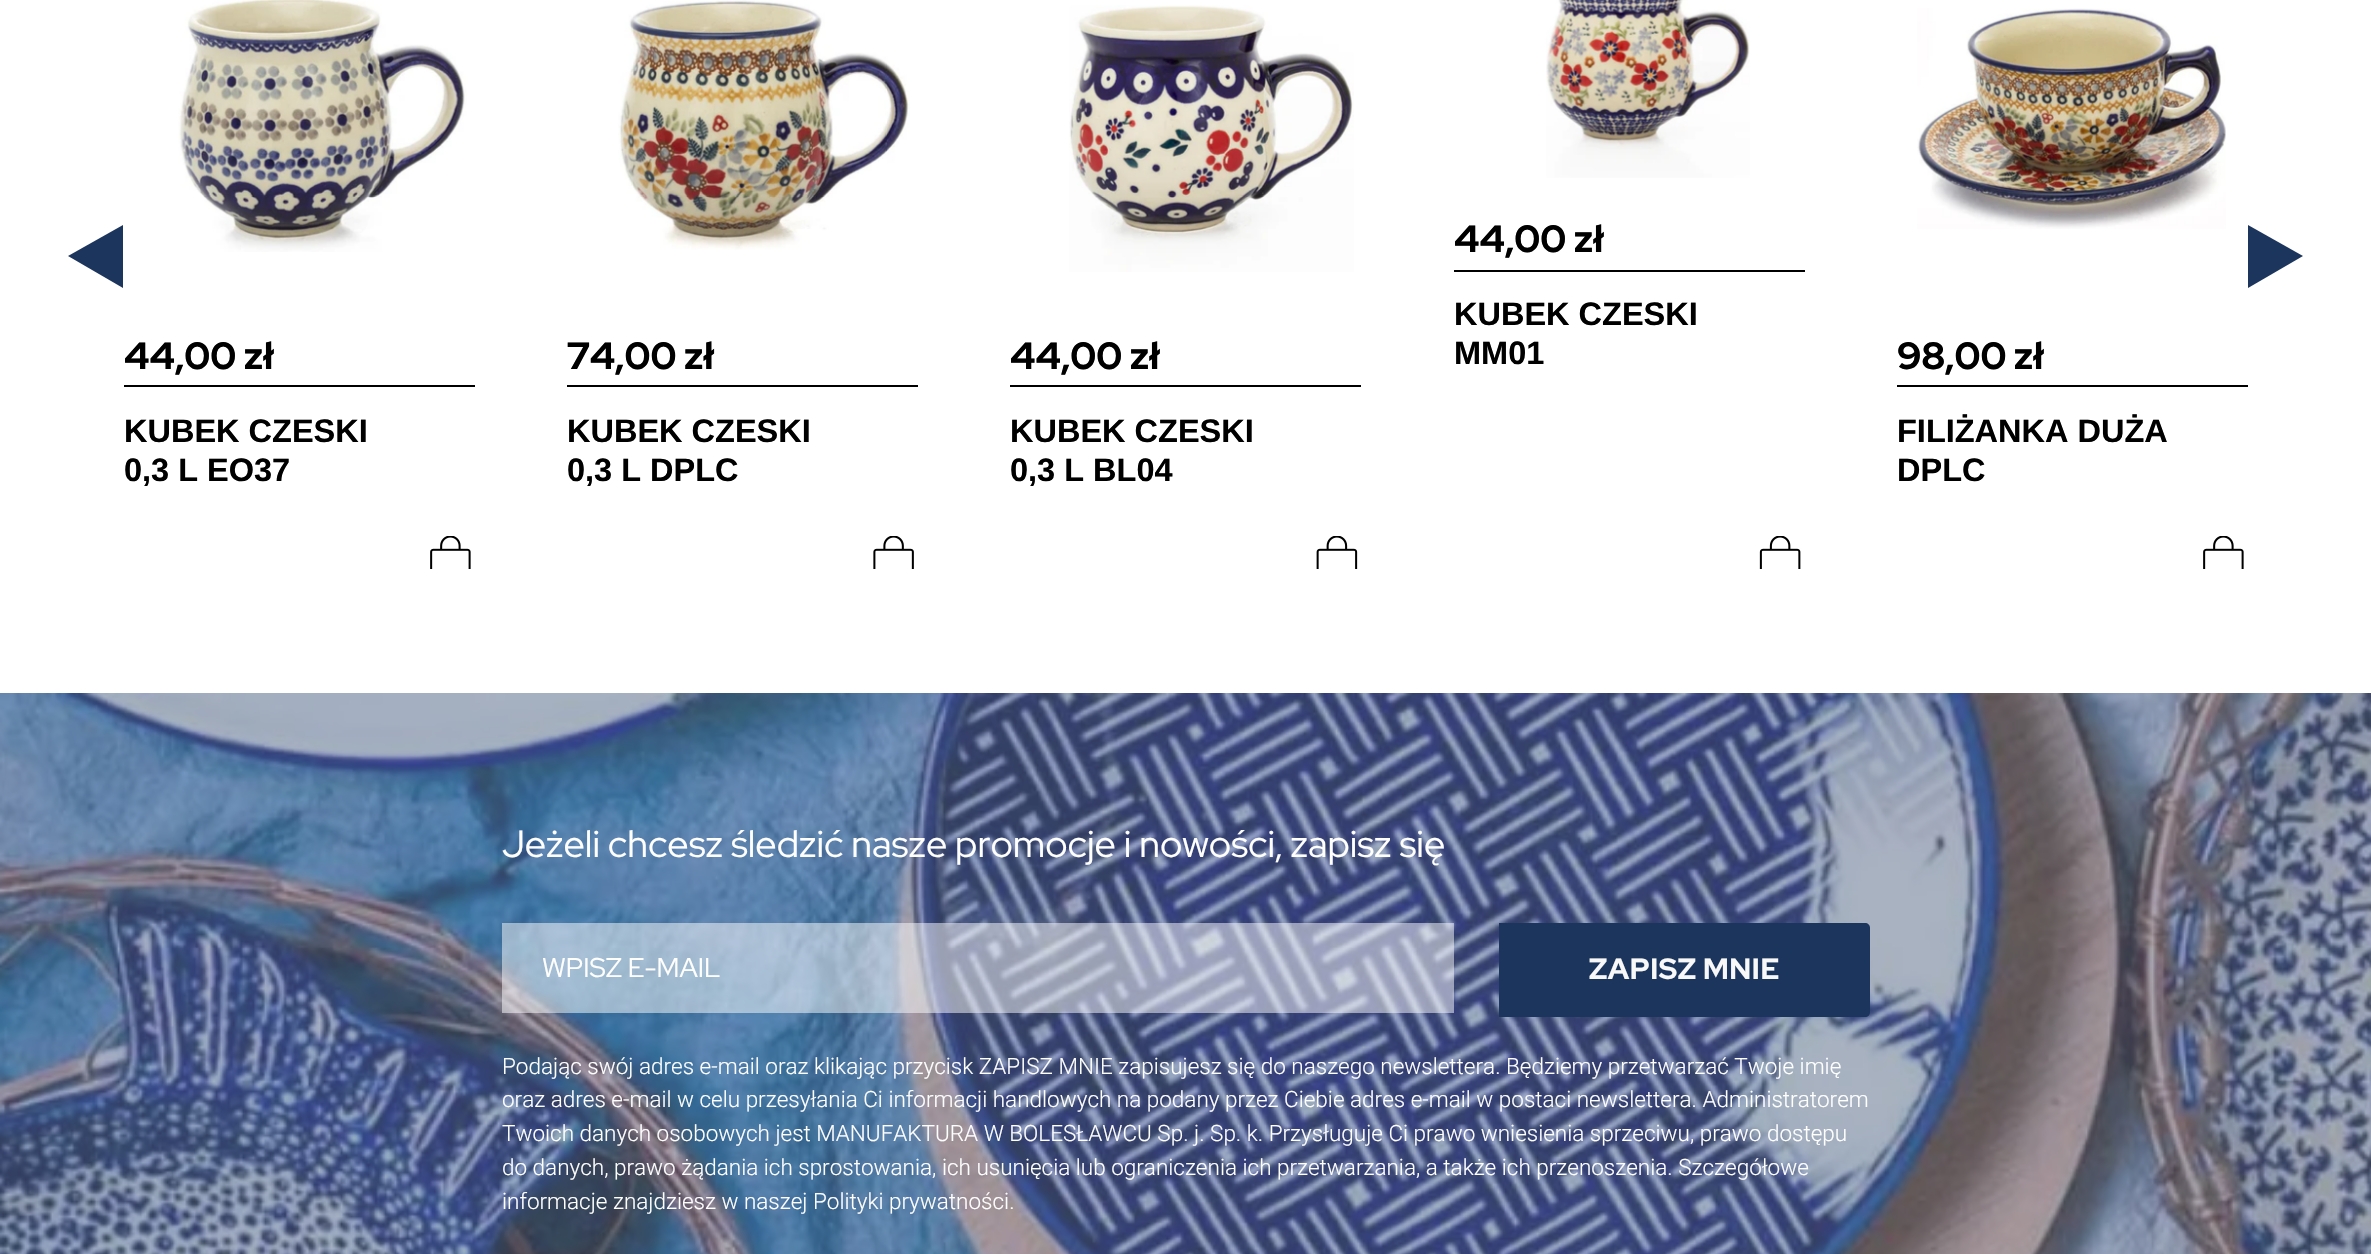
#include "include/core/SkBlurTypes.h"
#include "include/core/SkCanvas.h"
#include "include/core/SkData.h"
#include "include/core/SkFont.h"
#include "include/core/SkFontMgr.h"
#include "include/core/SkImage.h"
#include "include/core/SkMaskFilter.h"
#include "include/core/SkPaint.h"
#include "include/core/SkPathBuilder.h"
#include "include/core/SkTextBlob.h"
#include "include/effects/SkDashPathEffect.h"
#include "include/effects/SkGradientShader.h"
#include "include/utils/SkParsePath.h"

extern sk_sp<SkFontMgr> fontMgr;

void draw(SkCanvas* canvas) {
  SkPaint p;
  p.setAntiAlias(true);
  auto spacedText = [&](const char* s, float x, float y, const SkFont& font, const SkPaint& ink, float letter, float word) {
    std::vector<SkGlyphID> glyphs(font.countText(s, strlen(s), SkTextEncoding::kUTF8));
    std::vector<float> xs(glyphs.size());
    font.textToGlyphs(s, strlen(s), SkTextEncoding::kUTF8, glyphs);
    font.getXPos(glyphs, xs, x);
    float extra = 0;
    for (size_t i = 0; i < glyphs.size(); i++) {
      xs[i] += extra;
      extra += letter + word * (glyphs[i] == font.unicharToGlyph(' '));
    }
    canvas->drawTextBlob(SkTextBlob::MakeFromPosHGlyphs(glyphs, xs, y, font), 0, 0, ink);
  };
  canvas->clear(SK_ColorWHITE);
  p.setColor(SkColorSetRGB(28, 53, 93));
  canvas->drawPath(SkPathBuilder().moveTo(68, 256).lineTo(123, 225).lineTo(123, 288).close().detach(), p);
  canvas->drawImageRect(SkImages::DeferredFromEncodedData(SkData::MakeFromFileName("images/1.png")), SkRect::MakeLTRB(1546, 0, 1750, 178), SkSamplingOptions());
  p.setColor(SK_ColorBLACK);
  canvas->drawRect(SkRect::MakeLTRB(1454, 270, 1805, 272), p);
  canvas->drawImageRect(SkImages::DeferredFromEncodedData(SkData::MakeFromFileName("images/2.png")), SkRect::MakeLTRB(1759, 536, 1801, 569), SkSamplingOptions());
  canvas->drawImageRect(SkImages::DeferredFromEncodedData(SkData::MakeFromFileName("images/3.png")), SkRect::MakeLTRB(178, 0, 467, 252), SkSamplingOptions());
  canvas->drawRect(SkRect::MakeLTRB(124, 385, 475, 387), p);
  canvas->drawImageRect(SkImages::DeferredFromEncodedData(SkData::MakeFromFileName("images/4.png")), SkRect::MakeLTRB(430, 536, 471, 569), SkSamplingOptions());
  canvas->drawImageRect(SkImages::DeferredFromEncodedData(SkData::MakeFromFileName("images/5.png")), SkRect::MakeLTRB(618, 0, 910, 250), SkSamplingOptions());
  canvas->drawRect(SkRect::MakeLTRB(567, 385, 918, 387), p);
  canvas->drawImageRect(SkImages::DeferredFromEncodedData(SkData::MakeFromFileName("images/6.png")), SkRect::MakeLTRB(873, 536, 914, 569), SkSamplingOptions());
  canvas->drawImageRect(SkImages::DeferredFromEncodedData(SkData::MakeFromFileName("images/7.png")), SkRect::MakeLTRB(1069, 5, 1354, 272), SkSamplingOptions());
  canvas->drawRect(SkRect::MakeLTRB(1010, 385, 1361, 387), p);
  canvas->drawImageRect(SkImages::DeferredFromEncodedData(SkData::MakeFromFileName("images/8.png")), SkRect::MakeLTRB(1316, 536, 1358, 569), SkSamplingOptions());
  canvas->drawImageRect(SkImages::DeferredFromEncodedData(SkData::MakeFromFileName("images/9.png")), SkRect::MakeLTRB(1917, 8, 2226, 229), SkSamplingOptions());
  canvas->drawRect(SkRect::MakeLTRB(1897, 385, 2248, 387), p);
  canvas->drawImageRect(SkImages::DeferredFromEncodedData(SkData::MakeFromFileName("images/4.png")), SkRect::MakeLTRB(2203, 536, 2244, 569), SkSamplingOptions());
  p.setColor(SkColorSetRGB(28, 53, 93));
  canvas->drawPath(SkPathBuilder().moveTo(2303, 256).lineTo(2248, 288).lineTo(2248, 225).close().detach(), p);
  canvas->drawImageRect(SkImages::DeferredFromEncodedData(SkData::MakeFromFileName("images/10.png")), SkRect::MakeLTRB(0, 693, 2371, 1254), SkSamplingOptions());
  p.setColor(SkColorSetARGB(128, 255, 255, 255));
  canvas->drawRect(SkRect::MakeLTRB(502, 923, 1454, 1013), p);
  p.setColor(SkColorSetRGB(28, 53, 93));
  canvas->drawPath(SkPathBuilder().moveTo(1499, 923).lineTo(1865, 923).cubicTo(1868, 923, 1870, 925, 1870, 928).lineTo(1870, 1012).cubicTo(1870, 1015, 1868, 1017, 1865, 1017).lineTo(1499, 1017).close().detach(), p);
  SkFont font1(fontMgr->matchFamilyStyle("Red Hat Display", SkFontStyle::Bold()), 38);
  font1.setSubpixel(true);
  p.setColor(SK_ColorBLACK);
  canvas->drawString("44,00 zł", 1454, 252, font1, p);
  SkFont font2(fontMgr->matchFamilyStyle("Liberation Sans", SkFontStyle::Bold()), 32.5f);
  font2.setSubpixel(true);
  canvas->drawString("KUBEK CZESKI", 1454, 325, font2, p);
  canvas->drawString("MM01", 1454, 364, font2, p);
  canvas->drawString("44,00 zł", 124, 369, font1, p);
  canvas->drawString("KUBEK CZESKI", 124, 442, font2, p);
  canvas->drawString("0,3 L EO37", 124, 481, font2, p);
  canvas->drawString("74,00 zł", 567, 369, font1, p);
  canvas->drawString("KUBEK CZESKI", 567, 442, font2, p);
  canvas->drawString("0,3 L DPLC", 567, 481, font2, p);
  canvas->drawString("44,00 zł", 1010, 369, font1, p);
  canvas->drawString("KUBEK CZESKI", 1010, 442, font2, p);
  canvas->drawString("0,3 L BL04", 1010, 481, font2, p);
  canvas->drawString("98,00 zł", 1897, 369, font1, p);
  canvas->drawString("FILIŻANKA DUŻA", 1897, 442, font2, p);
  canvas->drawString("DPLC", 1897, 481, font2, p);
  SkFont font3(fontMgr->matchFamilyStyle("Red Hat Display", SkFontStyle::Normal()), 37.8f);
  font3.setSubpixel(true);
  p.setColor(SK_ColorWHITE);
  spacedText("Jeżeli chcesz śledzić nasze promocje i nowości, zapisz się", 502, 857, font3, p, 0, -0.25f);
  SkFont font4(fontMgr->matchFamilyStyle("Red Hat Display", SkFontStyle::Normal()), 27);
  font4.setSubpixel(true);
  canvas->drawString("WPISZ E-MAIL", 542, 977, font4, p);
  SkFont font5(fontMgr->matchFamilyStyle("Red Hat Display", SkFontStyle::Bold()), 29.25f);
  font5.setSubpixel(true);
  p.setColor(SkColorSetRGB(248, 248, 248));
  spacedText("ZAPISZ MNIE", 1589, 979, font5, p, 0.6f, 0);
  SkFont font6(fontMgr->matchFamilyStyle("Roboto", SkFontStyle(300, SkFontStyle::kNormal_Width, SkFontStyle::kUpright_Slant)), 22.5f);
  font6.setSubpixel(true);
  p.setColor(SK_ColorWHITE);
  canvas->drawString("Podając swój adres e-mail oraz klikając przycisk ZAPISZ MNIE zapisujesz się do naszego newslettera. Będziemy przetwarzać Twoje imię", 502, 1074, font6, p);
  canvas->drawString("oraz adres e-mail w celu przesyłania Ci informacji handlowych na podany przez Ciebie adres e-mail w postaci newslettera. Administratorem", 502, 1107, font6, p);
  canvas->drawString("Twoich danych osobowych jest MANUFAKTURA W BOLESŁAWCU Sp. j. Sp. k. Przysługuje Ci prawo wniesienia sprzeciwu, prawo dostępu", 502, 1141, font6, p);
  canvas->drawString("do danych, prawo żądania ich sprostowania, ich usunięcia lub ograniczenia ich przetwarzania, a także ich przenoszenia. Szczegółowe", 502, 1175, font6, p);
  canvas->drawString("informacje znajdziesz w naszej Polityki prywatności.", 502, 1209, font6, p);
}
